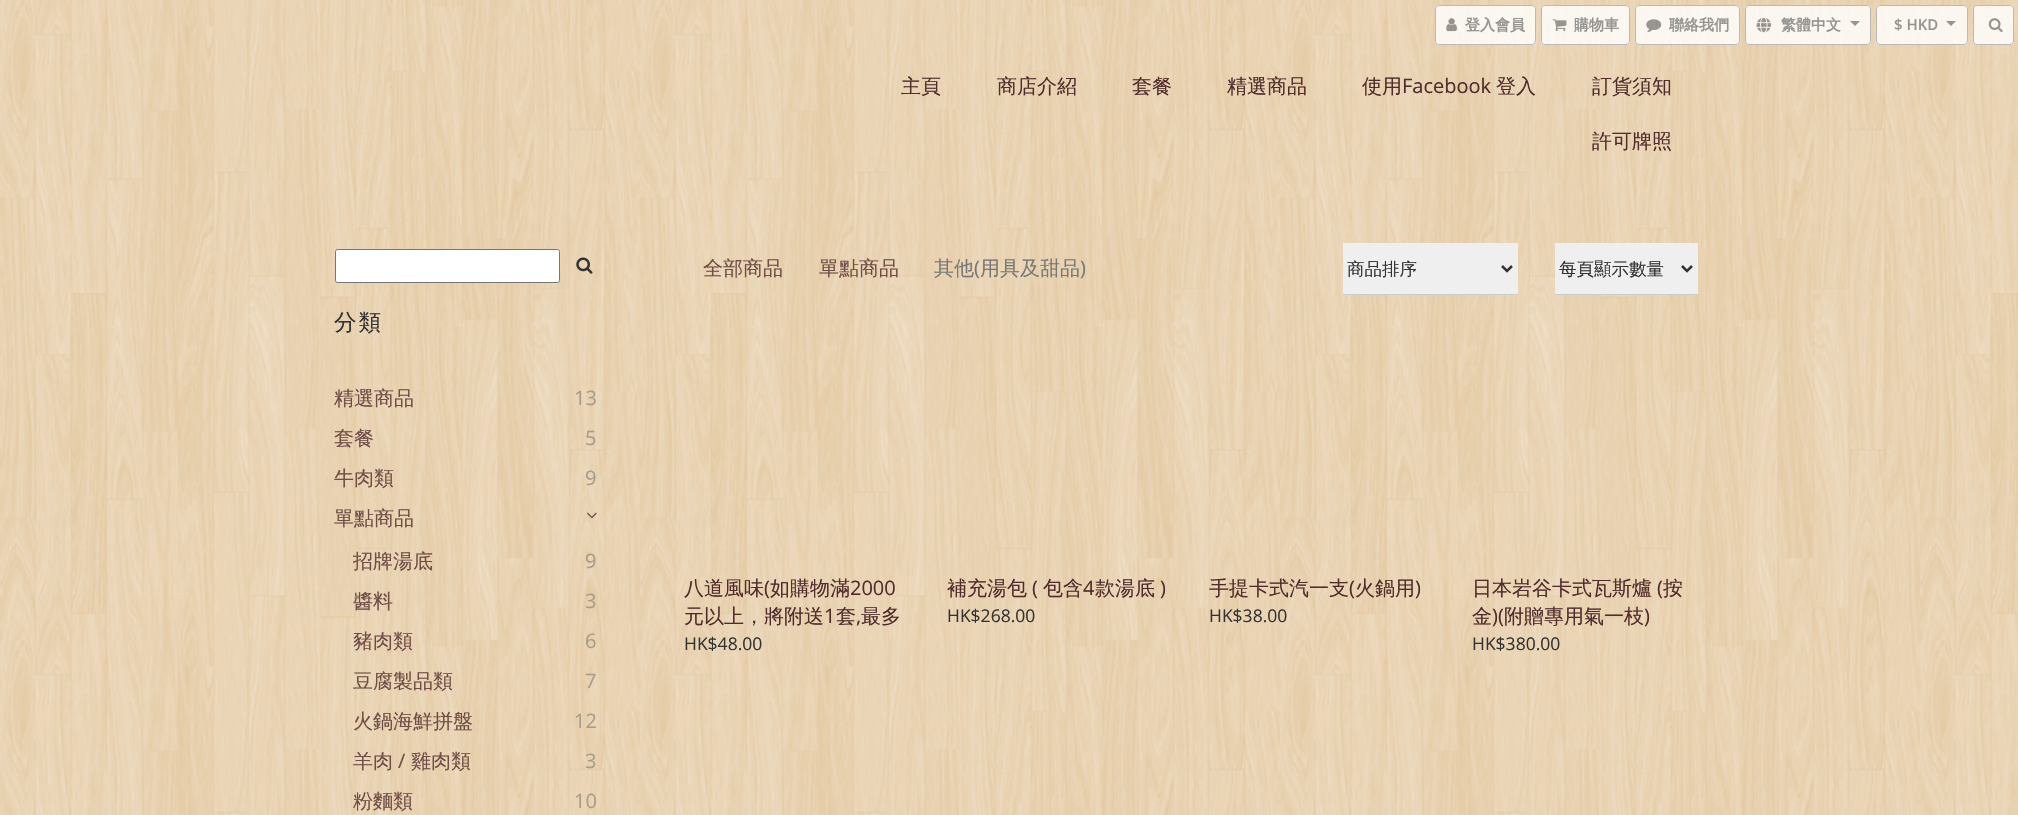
#include "include/core/SkBlurTypes.h"
#include "include/core/SkCanvas.h"
#include "include/core/SkData.h"
#include "include/core/SkFont.h"
#include "include/core/SkFontMgr.h"
#include "include/core/SkImage.h"
#include "include/core/SkMaskFilter.h"
#include "include/core/SkPaint.h"
#include "include/core/SkPathBuilder.h"
#include "include/core/SkTextBlob.h"
#include "include/effects/SkDashPathEffect.h"
#include "include/effects/SkGradientShader.h"
#include "include/utils/SkParsePath.h"

extern sk_sp<SkFontMgr> fontMgr;

void draw(SkCanvas* canvas) {
  SkPaint p;
  p.setAntiAlias(true);
  auto spacedText = [&](const char* s, float x, float y, const SkFont& font, const SkPaint& ink, float letter, float word) {
    std::vector<SkGlyphID> glyphs(font.countText(s, strlen(s), SkTextEncoding::kUTF8));
    std::vector<float> xs(glyphs.size());
    font.textToGlyphs(s, strlen(s), SkTextEncoding::kUTF8, glyphs);
    font.getXPos(glyphs, xs, x);
    float extra = 0;
    for (size_t i = 0; i < glyphs.size(); i++) {
      xs[i] += extra;
      extra += letter + word * (glyphs[i] == font.unicharToGlyph(' '));
    }
    canvas->drawTextBlob(SkTextBlob::MakeFromPosHGlyphs(glyphs, xs, y, font), 0, 0, ink);
  };
  canvas->clear(SK_ColorWHITE);
  canvas->drawImageRect(SkImages::DeferredFromEncodedData(SkData::MakeFromFileName("images/1.png")), SkRect::MakeLTRB(0, 0, 2018, 815), SkSamplingOptions());
  p.setColor(SkColorSetARGB(204, 255, 255, 255));
  canvas->drawRoundRect(SkRect::MakeLTRB(1435, 5, 1536, 45), 4, 4, p);
  p.setStyle(SkPaint::kStroke_Style);
  p.setStrokeWidth(1);
  p.setColor(SkColorSetARGB(204, 170, 170, 170));
  canvas->drawRoundRect(SkRect::MakeLTRB(1435.5f, 5.5f, 1535.5f, 44.5f), 3.5f, 3.5f, p);
  canvas->drawImageRect(SkImages::DeferredFromEncodedData(SkData::MakeFromFileName("images/2.png")), SkRect::MakeLTRB(1446, 18, 1457, 32), SkSamplingOptions());
  p.setStyle(SkPaint::kFill_Style);
  p.setColor(SkColorSetARGB(204, 255, 255, 255));
  canvas->drawRoundRect(SkRect::MakeLTRB(1541, 5, 1630, 45), 4, 4, p);
  p.setStyle(SkPaint::kStroke_Style);
  p.setColor(SkColorSetARGB(204, 170, 170, 170));
  canvas->drawRoundRect(SkRect::MakeLTRB(1541.5f, 5.5f, 1629.5f, 44.5f), 3.5f, 3.5f, p);
  canvas->drawImageRect(SkImages::DeferredFromEncodedData(SkData::MakeFromFileName("images/3.png")), SkRect::MakeLTRB(1552, 19, 1567, 31), SkSamplingOptions());
  p.setStyle(SkPaint::kFill_Style);
  p.setColor(SkColorSetARGB(204, 255, 255, 255));
  canvas->drawRoundRect(SkRect::MakeLTRB(1635, 5, 1740, 45), 4, 4, p);
  p.setStyle(SkPaint::kStroke_Style);
  p.setColor(SkColorSetARGB(204, 170, 170, 170));
  canvas->drawRoundRect(SkRect::MakeLTRB(1635.5f, 5.5f, 1739.5f, 44.5f), 3.5f, 3.5f, p);
  canvas->drawImageRect(SkImages::DeferredFromEncodedData(SkData::MakeFromFileName("images/4.png")), SkRect::MakeLTRB(1646, 19, 1662, 33), SkSamplingOptions());
  p.setStyle(SkPaint::kFill_Style);
  p.setColor(SkColorSetARGB(204, 255, 255, 255));
  canvas->drawRoundRect(SkRect::MakeLTRB(1745, 5, 1871, 45), 4, 4, p);
  p.setStyle(SkPaint::kStroke_Style);
  p.setColor(SkColorSetARGB(204, 170, 170, 170));
  canvas->drawRoundRect(SkRect::MakeLTRB(1745.5f, 5.5f, 1870.5f, 44.5f), 3.5f, 3.5f, p);
  canvas->drawImageRect(SkImages::DeferredFromEncodedData(SkData::MakeFromFileName("images/5.png")), SkRect::MakeLTRB(1756, 18, 1771, 33), SkSamplingOptions());
  p.setStyle(SkPaint::kFill_Style);
  p.setColor(SkColorSetARGB(102, 0, 0, 0));
  canvas->drawPath(SkPathBuilder().moveTo(1850, 21).lineTo(1860, 21).lineTo(1855, 26).close().detach(), p);
  p.setColor(SkColorSetARGB(204, 255, 255, 255));
  canvas->drawRoundRect(SkRect::MakeLTRB(1876, 5, 1968, 45), 4, 4, p);
  p.setStyle(SkPaint::kStroke_Style);
  p.setColor(SkColorSetARGB(204, 170, 170, 170));
  canvas->drawRoundRect(SkRect::MakeLTRB(1876.5f, 5.5f, 1967.5f, 44.5f), 3.5f, 3.5f, p);
  p.setStyle(SkPaint::kFill_Style);
  p.setColor(SkColorSetRGB(150, 148, 144));
  canvas->drawPath(SkPathBuilder().moveTo(1946, 21).lineTo(1956, 21).lineTo(1951, 26).close().detach(), p);
  p.setColor(SkColorSetARGB(204, 255, 255, 255));
  canvas->drawRoundRect(SkRect::MakeLTRB(1973, 5, 2014, 45), 4, 4, p);
  p.setStyle(SkPaint::kStroke_Style);
  p.setColor(SkColorSetARGB(204, 170, 170, 170));
  canvas->drawRoundRect(SkRect::MakeLTRB(1973.5f, 5.5f, 2013.5f, 44.5f), 3.5f, 3.5f, p);
  canvas->drawImageRect(SkImages::DeferredFromEncodedData(SkData::MakeFromFileName("images/6.png")), SkRect::MakeLTRB(1988, 18, 2003, 33), SkSamplingOptions());
  p.setStyle(SkPaint::kFill_Style);
  p.setColor(SK_ColorWHITE);
  canvas->drawRoundRect(SkRect::MakeLTRB(335.5f, 249.5f, 559.5f, 282.5f), 2, 2, p);
  p.setStyle(SkPaint::kStroke_Style);
  p.setColor(SkColorSetRGB(118, 118, 118));
  canvas->drawRoundRect(SkRect::MakeLTRB(335.5f, 249.5f, 559.5f, 282.5f), 2, 2, p);
  canvas->drawImageRect(SkImages::DeferredFromEncodedData(SkData::MakeFromFileName("images/7.png")), SkRect::MakeLTRB(576, 257, 593, 274), SkSamplingOptions());
  canvas->drawImageRect(SkImages::DeferredFromEncodedData(SkData::MakeFromFileName("images/8.png")), SkRect::MakeLTRB(587, 512, 597, 519), SkSamplingOptions());
  p.setStyle(SkPaint::kFill_Style);
  p.setColor(SkColorSetRGB(239, 239, 239));
  canvas->drawRect(SkRect::MakeLTRB(1343, 243, 1518, 294), p);
  p.setColor(SkColorSetRGB(204, 204, 204));
  canvas->drawRect(SkRect::MakeLTRB(1343, 294, 1518, 295), p);
  p.setStyle(SkPaint::kStroke_Style);
  p.setStrokeWidth(2.5f);
  p.setColor(SkColorSetRGB(51, 51, 51));
  canvas->drawPath(SkPathBuilder().moveTo(1502, 266).lineTo(1507, 271).lineTo(1512, 266).detach(), p);
  p.setStyle(SkPaint::kFill_Style);
  p.setColor(SkColorSetRGB(239, 239, 239));
  canvas->drawRect(SkRect::MakeLTRB(1555, 243, 1698, 294), p);
  p.setColor(SkColorSetRGB(204, 204, 204));
  canvas->drawRect(SkRect::MakeLTRB(1555, 294, 1698, 295), p);
  p.setStyle(SkPaint::kStroke_Style);
  p.setColor(SkColorSetRGB(51, 51, 51));
  canvas->drawPath(SkPathBuilder().moveTo(1682, 266).lineTo(1687, 271).lineTo(1692, 266).detach(), p);
  SkFont font1(fontMgr->matchFamilyStyle("WenQuanYi Zen Hei", SkFontStyle::Bold()), 15);
  font1.setSubpixel(true);
  p.setStyle(SkPaint::kFill_Style);
  p.setColor(SkColorSetRGB(150, 148, 144));
  canvas->drawString("登入會員", 1465, 30, font1, p);
  canvas->drawString("購物車", 1574, 30, font1, p);
  canvas->drawString("聯絡我們", 1669, 30, font1, p);
  canvas->drawString("繁體中文", 1781, 30, font1, p);
  SkFont font2(fontMgr->matchFamilyStyle("Open Sans", SkFontStyle(600, SkFontStyle::kNormal_Width, SkFontStyle::kUpright_Slant)), 15);
  font2.setSubpixel(true);
  canvas->drawString("$ HKD", 1894, 30, font2, p);
  SkFont font3(fontMgr->matchFamilyStyle("WenQuanYi Zen Hei", SkFontStyle(500, SkFontStyle::kNormal_Width, SkFontStyle::kUpright_Slant)), 20);
  font3.setSubpixel(true);
  p.setColor(SkColorSetRGB(80, 44, 43));
  canvas->drawString("主頁", 901, 93, font3, p);
  canvas->drawString("商店介紹", 997, 93, font3, p);
  canvas->drawString("套餐", 1132, 93, font3, p);
  canvas->drawString("精選商品", 1227, 93, font3, p);
  canvas->drawString("使用", 1362, 93, font3, p);
  SkFont font4(fontMgr->matchFamilyStyle("Open Sans", SkFontStyle::Normal()), 20);
  font4.setSubpixel(true);
  canvas->drawString("Facebook", 1402, 93, font4, p);
  canvas->drawString("登入", 1496, 93, font3, p);
  canvas->drawString("訂貨須知", 1592, 93, font3, p);
  canvas->drawString("許可牌照", 1592, 148, font3, p);
  SkFont font5(fontMgr->matchFamilyStyle("WenQuanYi Zen Hei", SkFontStyle(500, SkFontStyle::kNormal_Width, SkFontStyle::kUpright_Slant)), 22.5f);
  font5.setSubpixel(true);
  p.setColor(SkColorSetRGB(51, 51, 51));
  spacedText("分類", 334, 330, font5, p, 2, 0);
  p.setColor(SkColorSetRGB(111, 77, 70));
  canvas->drawString("精選商品", 334, 405, font3, p);
  p.setColor(SkColorSetRGB(167, 156, 139));
  canvas->drawString("13", 574, 405, font4, p);
  p.setColor(SkColorSetRGB(111, 77, 70));
  canvas->drawString("套餐", 334, 445, font3, p);
  p.setColor(SkColorSetRGB(167, 156, 139));
  canvas->drawString("5", 585, 445, font4, p);
  p.setColor(SkColorSetRGB(111, 77, 70));
  canvas->drawString("牛肉類", 334, 485, font3, p);
  p.setColor(SkColorSetRGB(167, 156, 139));
  canvas->drawString("9", 585, 485, font4, p);
  p.setColor(SkColorSetRGB(111, 77, 70));
  canvas->drawString("單點商品", 334, 525, font3, p);
  canvas->drawString("招牌湯底", 353, 568, font3, p);
  p.setColor(SkColorSetRGB(167, 156, 139));
  canvas->drawString("9", 585, 568, font4, p);
  p.setColor(SkColorSetRGB(111, 77, 70));
  canvas->drawString("醬料", 353, 608, font3, p);
  p.setColor(SkColorSetRGB(167, 156, 139));
  canvas->drawString("3", 585, 608, font4, p);
  p.setColor(SkColorSetRGB(111, 77, 70));
  canvas->drawString("豬肉類", 353, 648, font3, p);
  p.setColor(SkColorSetRGB(167, 156, 139));
  canvas->drawString("6", 585, 648, font4, p);
  p.setColor(SkColorSetRGB(111, 77, 70));
  canvas->drawString("豆腐製品類", 353, 688, font3, p);
  p.setColor(SkColorSetRGB(167, 156, 139));
  canvas->drawString("7", 585, 688, font4, p);
  p.setColor(SkColorSetRGB(111, 77, 70));
  canvas->drawString("火鍋海鮮拼盤", 353, 728, font3, p);
  p.setColor(SkColorSetRGB(167, 156, 139));
  canvas->drawString("12", 574, 728, font4, p);
  p.setColor(SkColorSetRGB(111, 77, 70));
  canvas->drawString("羊肉", 353, 768, font3, p);
  canvas->drawString("/", 398, 768, font4, p);
  canvas->drawString("雞肉類", 411, 768, font3, p);
  p.setColor(SkColorSetRGB(167, 156, 139));
  canvas->drawString("3", 585, 768, font4, p);
  p.setColor(SkColorSetRGB(111, 77, 70));
  canvas->drawString("粉麵類", 353, 808, font3, p);
  p.setColor(SkColorSetRGB(167, 156, 139));
  canvas->drawString("10", 574, 808, font4, p);
  p.setColor(SkColorSetRGB(111, 77, 70));
  canvas->drawString("全部商品", 703, 275, font3, p);
  canvas->drawString("單點商品", 819, 275, font3, p);
  p.setColor(SkColorSetRGB(119, 119, 119));
  canvas->drawString("其他 用具及甜品", 934, 275, font3, p);
  canvas->drawString("(", 974, 275, font4, p);
  canvas->drawString(")", 1080, 275, font4, p);
  SkFont font6(fontMgr->matchFamilyStyle("WenQuanYi Zen Hei", SkFontStyle(500, SkFontStyle::kNormal_Width, SkFontStyle::kUpright_Slant)), 17.5f);
  font6.setSubpixel(true);
  p.setColor(SkColorSetRGB(51, 51, 51));
  canvas->drawString("商品排序", 1347, 275, font6, p);
  canvas->drawString("每頁顯示數量", 1559, 275, font6, p);
  p.setColor(SkColorSetRGB(80, 44, 43));
  canvas->drawString("八道風味 如購物滿", 684, 595, font3, p);
  canvas->drawString("(", 764, 595, font4, p);
  canvas->drawString("2000", 850, 595, font4, p);
  canvas->drawString("元以上，將附送", 684, 623, font3, p);
  canvas->drawString("1", 824, 623, font4, p);
  canvas->drawString("套", 836, 623, font3, p);
  canvas->drawString(",", 856, 623, font4, p);
  canvas->drawString("最多", 861, 623, font3, p);
  SkFont font7(fontMgr->matchFamilyStyle("Open Sans", SkFontStyle::Normal()), 17.5f);
  font7.setSubpixel(true);
  p.setColor(SkColorSetRGB(51, 51, 51));
  canvas->drawString("HK$48.00", 684, 650, font7, p);
  p.setColor(SkColorSetRGB(80, 44, 43));
  canvas->drawString("補充湯包", 947, 595, font3, p);
  canvas->drawString("(", 1032, 595, font4, p);
  canvas->drawString("包含", 1043, 595, font3, p);
  canvas->drawString("4", 1083, 595, font4, p);
  canvas->drawString("款湯底", 1095, 595, font3, p);
  canvas->drawString(")", 1160, 595, font4, p);
  p.setColor(SkColorSetRGB(51, 51, 51));
  canvas->drawString("HK$268.00", 947, 622, font7, p);
  p.setColor(SkColorSetRGB(80, 44, 43));
  canvas->drawString("手提卡式汽一支 火鍋用", 1209, 595, font3, p);
  canvas->drawString("(", 1349, 595, font4, p);
  canvas->drawString(")", 1415, 595, font4, p);
  p.setColor(SkColorSetRGB(51, 51, 51));
  canvas->drawString("HK$38.00", 1209, 622, font7, p);
  p.setColor(SkColorSetRGB(80, 44, 43));
  canvas->drawString("日本岩谷卡式瓦斯爐", 1472, 595, font3, p);
  canvas->drawString("(", 1657, 595, font4, p);
  canvas->drawString("按", 1663, 595, font3, p);
  canvas->drawString("金", 1472, 623, font3, p);
  canvas->drawString(")(", 1492, 623, font4, p);
  canvas->drawString("附贈專用氣一枝", 1504, 623, font3, p);
  canvas->drawString(")", 1644, 623, font4, p);
  p.setColor(SkColorSetRGB(51, 51, 51));
  canvas->drawString("HK$380.00", 1472, 650, font7, p);
}
